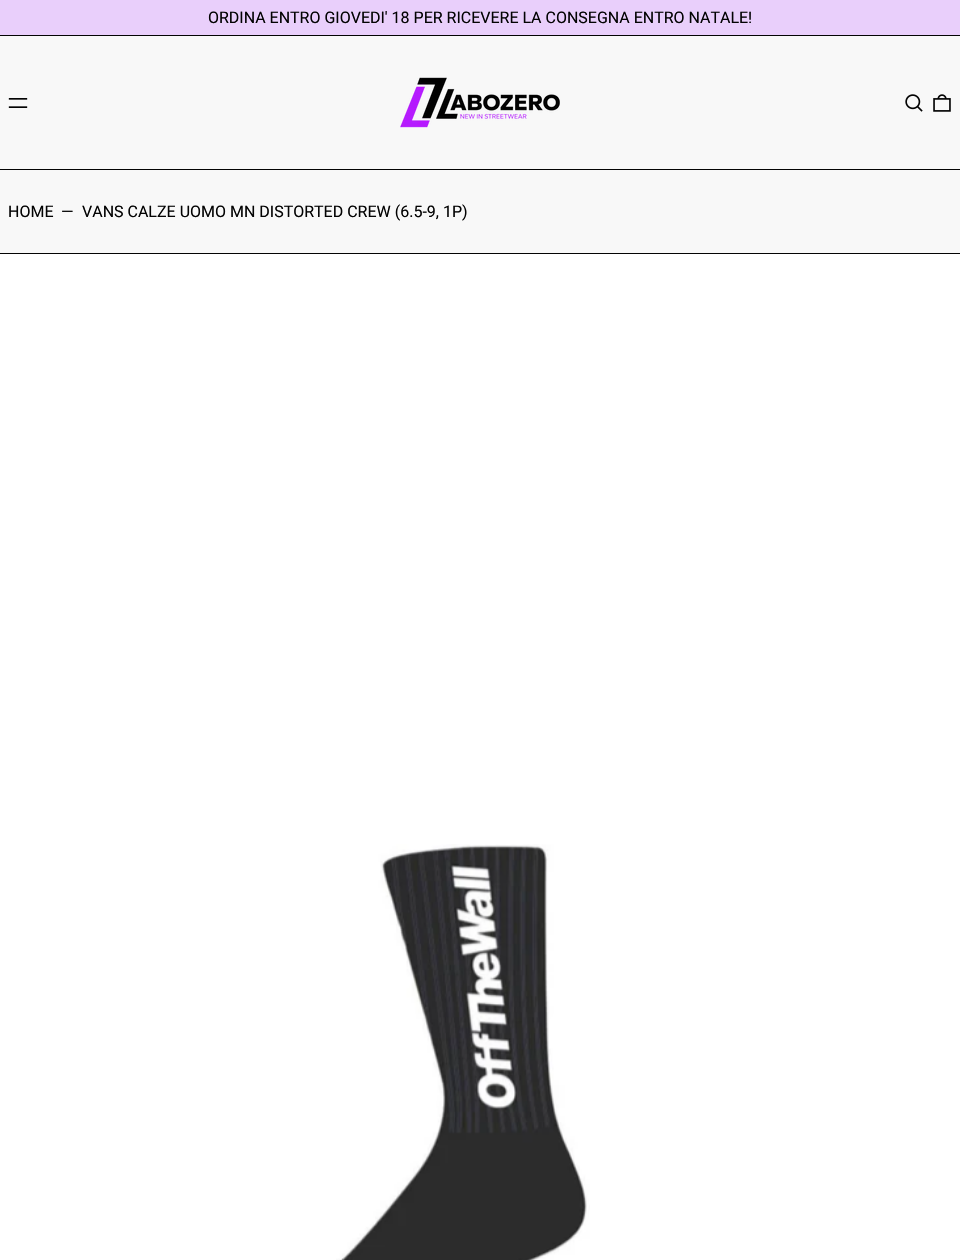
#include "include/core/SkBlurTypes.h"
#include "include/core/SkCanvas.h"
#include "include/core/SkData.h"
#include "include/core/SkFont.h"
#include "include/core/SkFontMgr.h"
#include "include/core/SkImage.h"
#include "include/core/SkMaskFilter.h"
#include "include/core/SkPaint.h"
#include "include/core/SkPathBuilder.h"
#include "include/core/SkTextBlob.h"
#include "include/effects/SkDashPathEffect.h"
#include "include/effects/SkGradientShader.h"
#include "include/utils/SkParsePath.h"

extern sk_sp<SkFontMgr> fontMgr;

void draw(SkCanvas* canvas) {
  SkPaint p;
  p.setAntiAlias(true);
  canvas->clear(SK_ColorWHITE);
  p.setColor(SkColorSetRGB(233, 207, 251));
  canvas->drawRect(SkRect::MakeLTRB(0, 0, 960, 35), p);
  p.setColor(SkColorSetRGB(3, 3, 3));
  canvas->drawRect(SkRect::MakeLTRB(0, 35, 960, 36), p);
  p.setColor(SkColorSetRGB(248, 248, 248));
  canvas->drawRect(SkRect::MakeLTRB(0, 36, 960, 169), p);
  p.setColor(SkColorSetRGB(3, 3, 3));
  canvas->drawRect(SkRect::MakeLTRB(0, 169, 960, 170), p);
  canvas->drawImageRect(SkImages::DeferredFromEncodedData(SkData::MakeFromFileName("images/1.png")), SkRect::MakeLTRB(8, 98, 28, 108), SkSamplingOptions());
  canvas->drawImageRect(SkImages::DeferredFromEncodedData(SkData::MakeFromFileName("images/2.png")), SkRect::MakeLTRB(400, 77, 560, 128), SkSamplingOptions());
  canvas->drawImageRect(SkImages::DeferredFromEncodedData(SkData::MakeFromFileName("images/3.png")), SkRect::MakeLTRB(905, 94, 923, 112), SkSamplingOptions());
  canvas->drawImageRect(SkImages::DeferredFromEncodedData(SkData::MakeFromFileName("images/4.png")), SkRect::MakeLTRB(933, 94, 951, 112), SkSamplingOptions());
  p.setColor(SkColorSetRGB(248, 248, 248));
  canvas->drawRect(SkRect::MakeLTRB(0, 170, 960, 253), p);
  p.setColor(SkColorSetRGB(3, 3, 3));
  canvas->drawRect(SkRect::MakeLTRB(0, 253, 960, 254), p);
  canvas->drawImageRect(SkImages::DeferredFromEncodedData(SkData::MakeFromFileName("images/5.png")), SkRect::MakeLTRB(336, 844, 590, 1260), SkSamplingOptions());
  SkFont font1(fontMgr->matchFamilyStyle("Roboto", SkFontStyle::Normal()), 16);
  font1.setSubpixel(true);
  canvas->drawString("ORDINA ENTRO GIOVEDI' 18 PER RICEVERE LA CONSEGNA ENTRO NATALE!", 208, 23, font1, p);
  canvas->drawString("HOME", 8, 217, font1, p);
  canvas->drawString("—", 61, 217, font1, p);
  canvas->drawString("VANS CALZE UOMO MN DISTORTED CREW (6.5-9, 1P)", 82, 217, font1, p);
}
